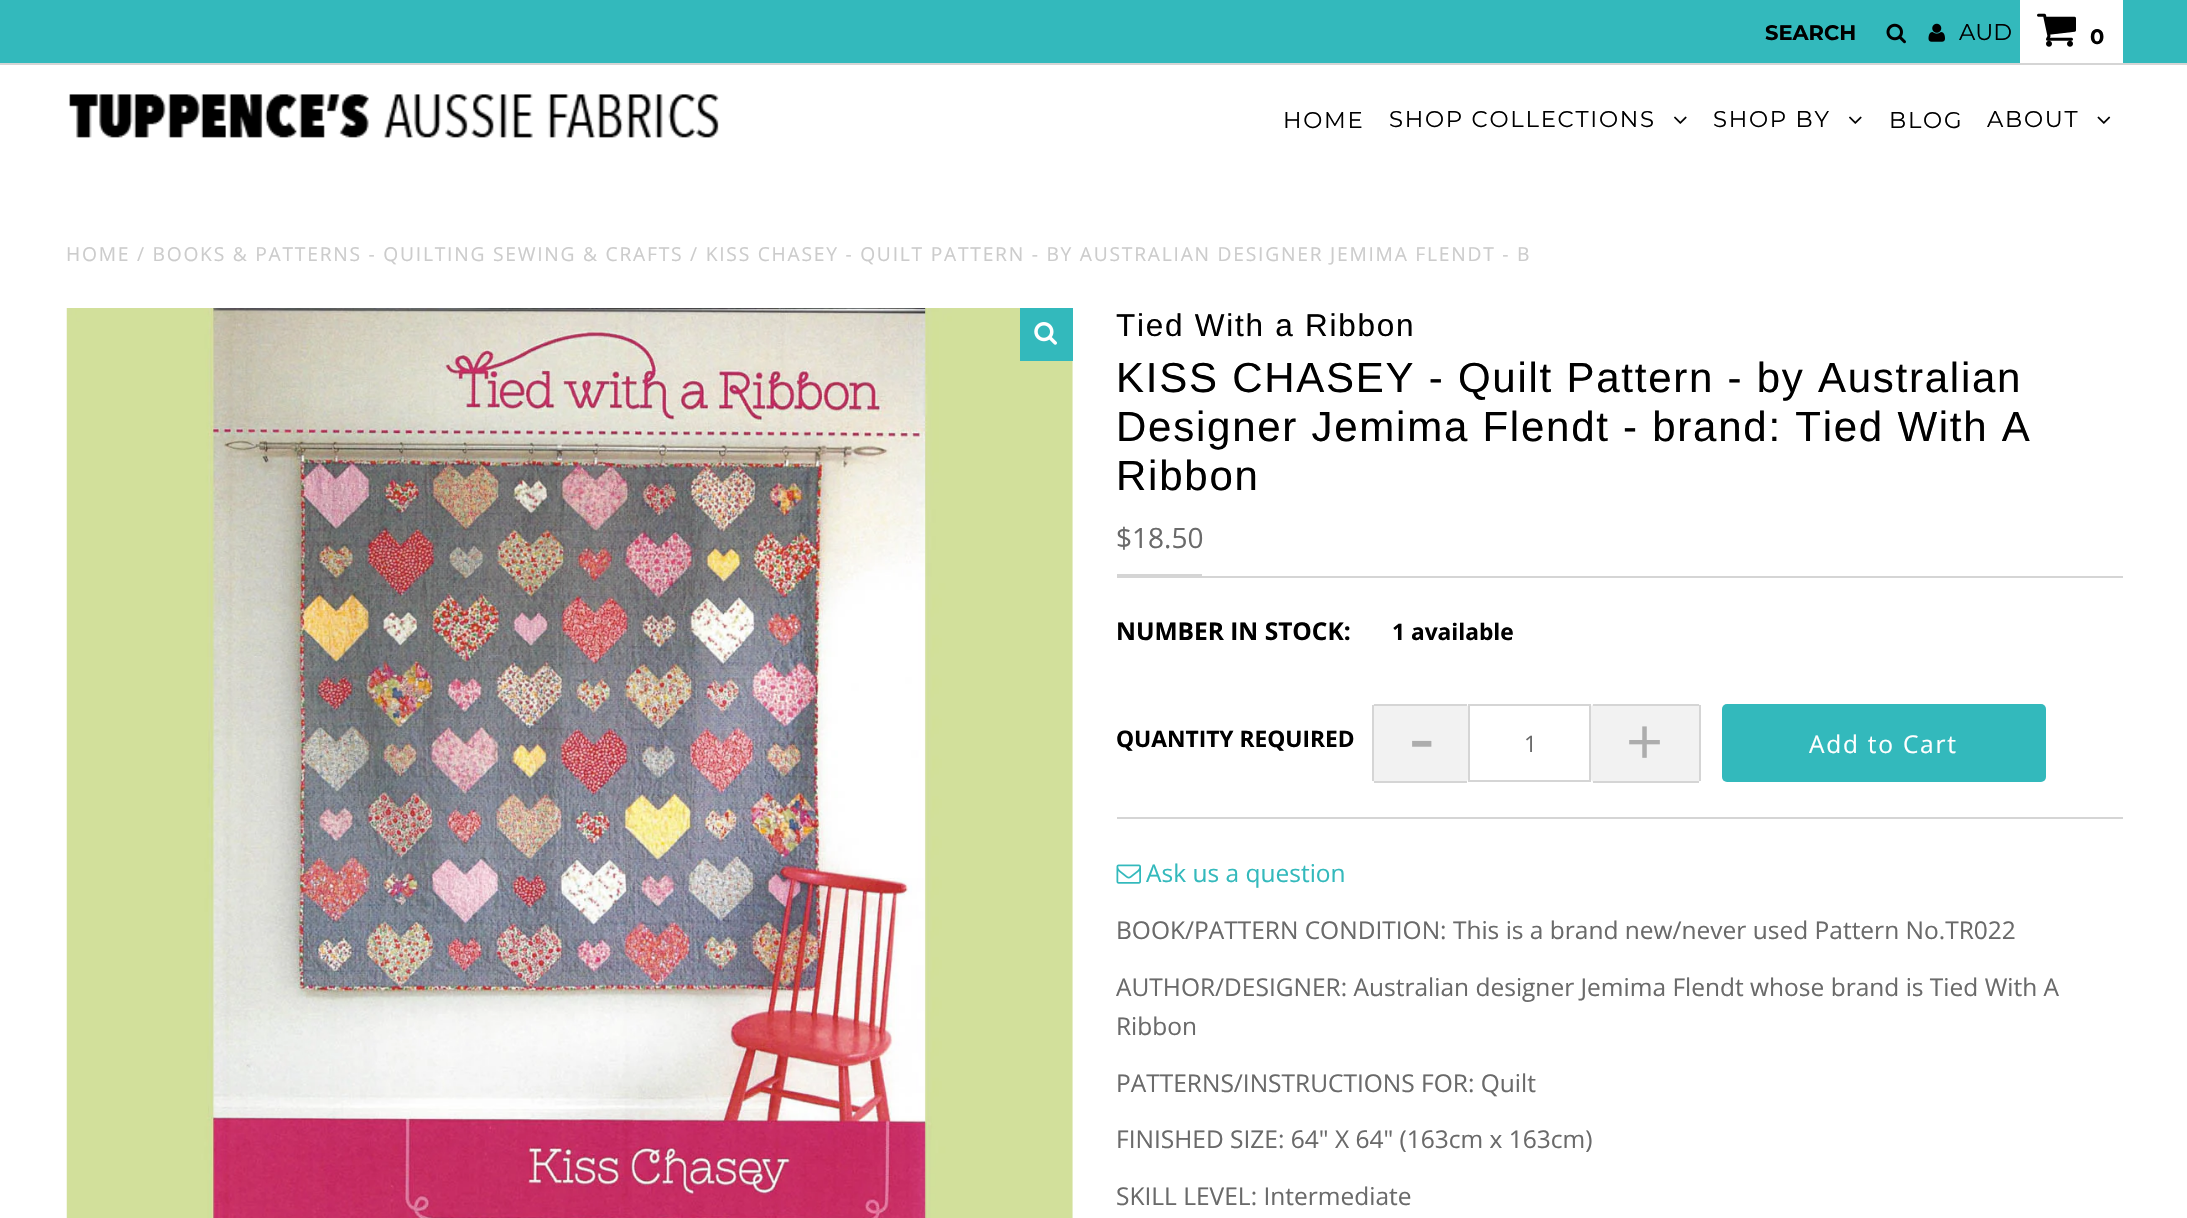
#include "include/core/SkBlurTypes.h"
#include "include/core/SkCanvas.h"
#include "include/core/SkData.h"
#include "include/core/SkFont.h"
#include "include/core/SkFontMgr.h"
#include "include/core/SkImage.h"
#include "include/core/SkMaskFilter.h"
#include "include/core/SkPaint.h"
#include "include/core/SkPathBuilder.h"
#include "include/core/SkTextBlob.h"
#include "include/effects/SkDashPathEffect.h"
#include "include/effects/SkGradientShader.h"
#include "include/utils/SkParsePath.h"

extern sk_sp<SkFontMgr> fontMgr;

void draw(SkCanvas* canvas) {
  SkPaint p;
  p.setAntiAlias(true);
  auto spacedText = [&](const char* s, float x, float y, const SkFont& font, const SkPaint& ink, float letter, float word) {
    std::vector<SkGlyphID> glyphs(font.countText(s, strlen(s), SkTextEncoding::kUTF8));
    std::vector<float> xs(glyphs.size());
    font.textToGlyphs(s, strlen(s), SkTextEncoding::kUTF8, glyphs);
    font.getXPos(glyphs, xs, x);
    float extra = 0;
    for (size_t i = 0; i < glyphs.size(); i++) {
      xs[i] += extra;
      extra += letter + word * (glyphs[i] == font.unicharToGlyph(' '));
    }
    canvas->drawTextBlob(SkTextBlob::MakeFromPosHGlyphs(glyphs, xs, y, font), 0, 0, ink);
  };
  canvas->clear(SK_ColorWHITE);
  p.setColor(SkColorSetRGB(51, 185, 188));
  canvas->drawRect(SkRect::MakeLTRB(0, 0, 2187, 63), p);
  p.setColor(SkColorSetRGB(213, 213, 213));
  canvas->drawRect(SkRect::MakeLTRB(0, 63, 2187, 65), p);
  canvas->drawImageRect(SkImages::DeferredFromEncodedData(SkData::MakeFromFileName("images/1.png")), SkRect::MakeLTRB(1886, 23, 1906, 44), SkSamplingOptions());
  canvas->drawImageRect(SkImages::DeferredFromEncodedData(SkData::MakeFromFileName("images/2.png")), SkRect::MakeLTRB(1928, 23, 1945, 42), SkSamplingOptions());
  p.setColor(SK_ColorWHITE);
  canvas->drawRect(SkRect::MakeLTRB(2020, 0, 2123, 63), p);
  canvas->drawImageRect(SkImages::DeferredFromEncodedData(SkData::MakeFromFileName("images/3.png")), SkRect::MakeLTRB(2037, 13, 2076, 47), SkSamplingOptions());
  canvas->drawImageRect(SkImages::DeferredFromEncodedData(SkData::MakeFromFileName("images/4.png")), SkRect::MakeLTRB(69, 94, 719, 138), SkSamplingOptions());
  canvas->drawImageRect(SkImages::DeferredFromEncodedData(SkData::MakeFromFileName("images/5.png")), SkRect::MakeLTRB(1674, 116, 1687, 124), SkSamplingOptions());
  canvas->drawImageRect(SkImages::DeferredFromEncodedData(SkData::MakeFromFileName("images/5.png")), SkRect::MakeLTRB(1849, 116, 1862, 124), SkSamplingOptions());
  canvas->drawImageRect(SkImages::DeferredFromEncodedData(SkData::MakeFromFileName("images/6.png")), SkRect::MakeLTRB(2097, 116, 2111, 124), SkSamplingOptions());
  canvas->drawImageRect(SkImages::DeferredFromEncodedData(SkData::MakeFromFileName("images/7.png")), SkRect::MakeLTRB(66, 308, 1073, 1218), SkSamplingOptions());
  p.setColor(SkColorSetRGB(51, 185, 188));
  canvas->drawRect(SkRect::MakeLTRB(1020, 308, 1073, 361), p);
  canvas->drawImageRect(SkImages::DeferredFromEncodedData(SkData::MakeFromFileName("images/8.png")), SkRect::MakeLTRB(1034, 322, 1057, 345), SkSamplingOptions());
  p.setColor(SkColorSetRGB(213, 213, 213));
  canvas->drawRect(SkRect::MakeLTRB(1117, 576, 2123, 578), p);
  canvas->drawRect(SkRect::MakeLTRB(1117, 574, 1202, 576), p);
  canvas->drawRect(SkRect::MakeLTRB(1117, 817, 2123, 819), p);
  p.setColor(SkColorSetRGB(242, 242, 242));
  canvas->drawRoundRect(SkRect::MakeLTRB(1372, 704, 1468, 782), 4, 4, p);
  p.setColor(SkColorSetRGB(213, 213, 213));
  canvas->drawRect(SkRect::MakeLTRB(1374, 704, 1467, 706), p);
  canvas->drawRect(SkRect::MakeLTRB(1374, 781, 1467, 783), p);
  canvas->drawRect(SkRect::MakeLTRB(1372, 705, 1374, 781), p);
  p.setStyle(SkPaint::kStroke_Style);
  p.setStrokeWidth(2);
  canvas->drawRect(SkRect::MakeLTRB(1469, 705, 1590, 781), p);
  p.setStyle(SkPaint::kFill_Style);
  p.setColor(SkColorSetRGB(242, 242, 242));
  canvas->drawRoundRect(SkRect::MakeLTRB(1591, 704, 1701, 782), 4, 4, p);
  p.setColor(SkColorSetRGB(213, 213, 213));
  canvas->drawRect(SkRect::MakeLTRB(1593, 704, 1699, 706), p);
  canvas->drawRect(SkRect::MakeLTRB(1699, 705, 1701, 781), p);
  canvas->drawRect(SkRect::MakeLTRB(1593, 781, 1699, 783), p);
  p.setColor(SkColorSetRGB(51, 185, 188));
  canvas->drawRoundRect(SkRect::MakeLTRB(1722, 704, 2046, 782), 5, 5, p);
  canvas->drawImageRect(SkImages::DeferredFromEncodedData(SkData::MakeFromFileName("images/9.png")), SkRect::MakeLTRB(1116, 864, 1141, 884), SkSamplingOptions());
  SkFont font1(fontMgr->matchFamilyStyle("Montserrat", SkFontStyle::Bold()), 21);
  font1.setSubpixel(true);
  p.setColor(SK_ColorBLACK);
  canvas->drawString("SEARCH", 1765, 40, font1, p);
  SkFont font2(fontMgr->matchFamilyStyle("Montserrat", SkFontStyle::Normal()), 22.75f);
  font2.setSubpixel(true);
  canvas->drawString("AUD", 1959, 40, font2, p);
  canvas->drawString("0", 2090, 44, font1, p);
  spacedText("HOME", 1283, 128, font2, p, 1.75f, 0);
  spacedText("SHOP COLLECTIONS", 1389, 127, font2, p, 1.75f, 0);
  spacedText("SHOP BY", 1713, 127, font2, p, 1.75f, 0);
  spacedText("BLOG", 1889, 128, font2, p, 1.75f, 0);
  spacedText("ABOUT", 1987, 127, font2, p, 1.75f, 0);
  SkFont font3(fontMgr->matchFamilyStyle("Open Sans", SkFontStyle::Normal()), 19.25f);
  font3.setSubpixel(true);
  p.setColor(SkColorSetRGB(204, 204, 204));
  spacedText("HOME / BOOKS & PATTERNS - QUILTING SEWING & CRAFTS / KISS CHASEY - QUILT PATTERN - BY AUSTRALIAN DESIGNER JEMIMA FLENDT - B", 66, 261, font3, p, 1.75f, 0);
  SkFont font4(fontMgr->matchFamilyStyle("Liberation Sans", SkFontStyle::Normal()), 31.5f);
  font4.setSubpixel(true);
  p.setColor(SK_ColorBLACK);
  spacedText("Tied With a Ribbon", 1116, 336, font4, p, 1.75f, 0);
  SkFont font5(fontMgr->matchFamilyStyle("Liberation Sans", SkFontStyle::Normal()), 42);
  font5.setSubpixel(true);
  spacedText("KISS CHASEY - Quilt Pattern - by Australian", 1116, 392, font5, p, 1.75f, 0);
  spacedText("Designer Jemima Flendt - brand: Tied With A", 1116, 441, font5, p, 1.75f, 0);
  spacedText("Ribbon", 1116, 490, font5, p, 1.75f, 0);
  SkFont font6(fontMgr->matchFamilyStyle("Open Sans", SkFontStyle::Normal()), 28);
  font6.setSubpixel(true);
  p.setColor(SkColorSetRGB(106, 106, 106));
  canvas->drawString("$18.50", 1116, 548, font6, p);
  SkFont font7(fontMgr->matchFamilyStyle("Open Sans", SkFontStyle::Bold()), 24.5f);
  font7.setSubpixel(true);
  p.setColor(SK_ColorBLACK);
  canvas->drawString("NUMBER IN STOCK:", 1116, 640, font7, p);
  SkFont font8(fontMgr->matchFamilyStyle("Open Sans", SkFontStyle::Bold()), 22.75f);
  font8.setSubpixel(true);
  canvas->drawString("1 available", 1392, 640, font8, p);
  canvas->drawString("QUANTITY REQUIRED", 1116, 747, font8, p);
  SkFont font9(fontMgr->matchFamilyStyle("Open Sans", SkFontStyle::Normal()), 79);
  font9.setSubpixel(true);
  p.setColor(SkColorSetRGB(173, 173, 173));
  canvas->drawString("-", 1409, 765, font9, p);
  SkFont font10(fontMgr->matchFamilyStyle("Open Sans", SkFontStyle::Normal()), 22.75f);
  font10.setSubpixel(true);
  p.setColor(SkColorSetRGB(106, 106, 106));
  canvas->drawString("1", 1524, 752, font10, p);
  SkFont font11(fontMgr->matchFamilyStyle("Open Sans", SkFontStyle::Normal()), 65);
  font11.setSubpixel(true);
  p.setColor(SkColorSetRGB(173, 173, 173));
  canvas->drawString("+", 1626, 765, font11, p);
  SkFont font12(fontMgr->matchFamilyStyle("Open Sans", SkFontStyle::Normal()), 24.5f);
  font12.setSubpixel(true);
  p.setColor(SK_ColorWHITE);
  spacedText("Add to Cart", 1809, 753, font12, p, 1.75f, 0);
  p.setColor(SkColorSetRGB(51, 185, 188));
  canvas->drawString("Ask us a question", 1146, 882, font12, p);
  p.setColor(SkColorSetRGB(106, 106, 106));
  canvas->drawString("BOOK/PATTERN CONDITION: This is a brand new/never used Pattern No.TR022", 1116, 939, font12, p);
  canvas->drawString("AUTHOR/DESIGNER: Australian designer Jemima Flendt whose brand is Tied With A", 1116, 996, font12, p);
  canvas->drawString("Ribbon", 1116, 1035, font12, p);
  canvas->drawString("PATTERNS/INSTRUCTIONS FOR: Quilt", 1116, 1092, font12, p);
  canvas->drawString("FINISHED SIZE: 64\" X 64\" (163cm x 163cm)", 1116, 1148, font12, p);
  canvas->drawString("SKILL LEVEL: Intermediate", 1116, 1205, font12, p);
}
